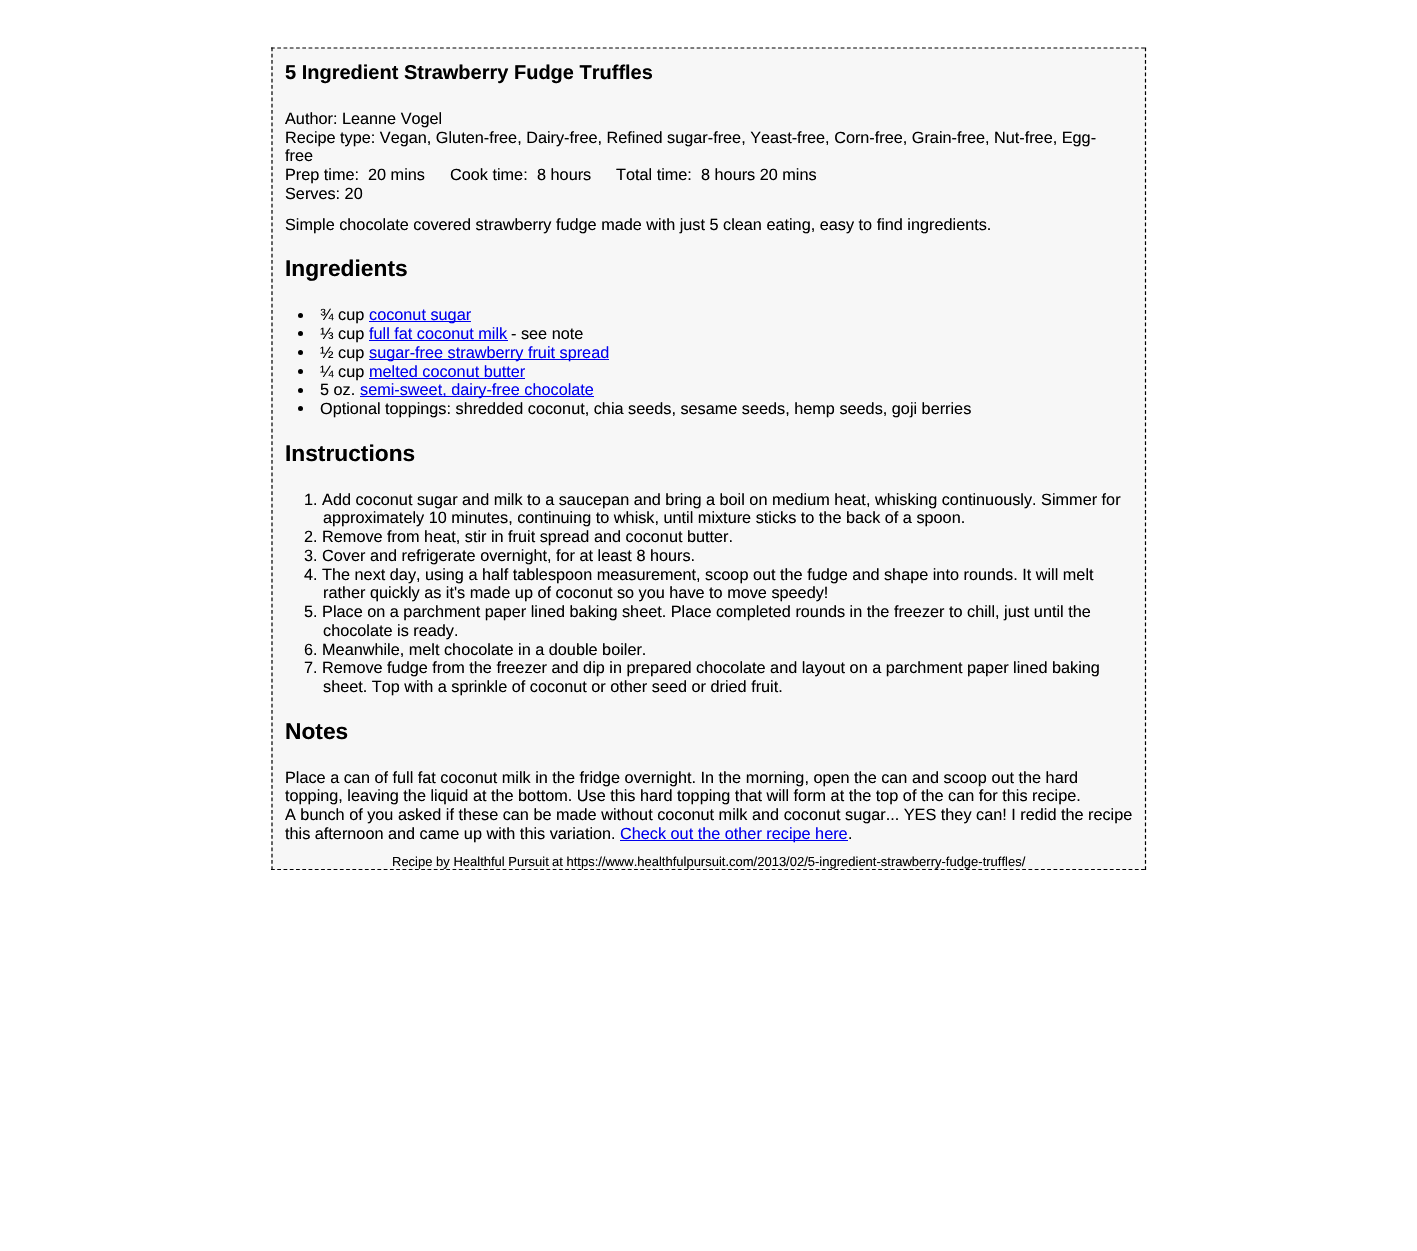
#include "include/core/SkBlurTypes.h"
#include "include/core/SkCanvas.h"
#include "include/core/SkData.h"
#include "include/core/SkFont.h"
#include "include/core/SkFontMgr.h"
#include "include/core/SkImage.h"
#include "include/core/SkMaskFilter.h"
#include "include/core/SkPaint.h"
#include "include/core/SkPathBuilder.h"
#include "include/core/SkTextBlob.h"
#include "include/effects/SkDashPathEffect.h"
#include "include/effects/SkGradientShader.h"
#include "include/utils/SkParsePath.h"

extern sk_sp<SkFontMgr> fontMgr;

void draw(SkCanvas* canvas) {
  SkPaint p;
  p.setAntiAlias(true);
  canvas->clear(SK_ColorWHITE);
  p.setColor(SkColorSetRGB(247, 247, 247));
  canvas->drawRect(SkRect::MakeLTRB(271, 48, 1146, 870), p);
  p.setStyle(SkPaint::kStroke_Style);
  p.setStrokeWidth(1.2f);
  p.setColor(SK_ColorBLACK);
  p.setPathEffect(SkDashPathEffect::Make({{3.75f, 2.51f}}, 0));
  canvas->drawPath(SkPathBuilder().moveTo(271, 48).lineTo(1146, 48).detach(), p);
  p.setPathEffect(nullptr);
  p.setPathEffect(SkDashPathEffect::Make({{3.75f, 2.5f}}, 0));
  canvas->drawPath(SkPathBuilder().moveTo(1145.5f, 47.5f).lineTo(1145.5f, 870).detach(), p);
  p.setPathEffect(nullptr);
  p.setPathEffect(SkDashPathEffect::Make({{3.75f, 2.51f}}, 0));
  canvas->drawPath(SkPathBuilder().moveTo(271, 869.5f).lineTo(1146, 869.5f).detach(), p);
  p.setPathEffect(nullptr);
  p.setPathEffect(SkDashPathEffect::Make({{3.75f, 2.5f}}, 0));
  canvas->drawPath(SkPathBuilder().moveTo(272, 47.5f).lineTo(272, 870).detach(), p);
  p.setPathEffect(nullptr);
  p.setStyle(SkPaint::kFill_Style);
  canvas->drawCircle(300.5f, 315.5f, 2.5f, p);
  p.setColor(SkColorSetRGB(0, 0, 238));
  canvas->drawRect(SkRect::MakeLTRB(369, 321, 471, 322), p);
  p.setColor(SK_ColorBLACK);
  canvas->drawCircle(300.5f, 333.5f, 2.5f, p);
  p.setColor(SkColorSetRGB(0, 0, 238));
  canvas->drawRect(SkRect::MakeLTRB(369, 340, 508, 341), p);
  p.setColor(SK_ColorBLACK);
  canvas->drawCircle(300.5f, 352.5f, 2.5f, p);
  p.setColor(SkColorSetRGB(0, 0, 238));
  canvas->drawRect(SkRect::MakeLTRB(369, 359, 609, 360), p);
  p.setColor(SK_ColorBLACK);
  canvas->drawCircle(300.5f, 371.5f, 2.5f, p);
  p.setColor(SkColorSetRGB(0, 0, 238));
  canvas->drawRect(SkRect::MakeLTRB(369, 378, 525, 379), p);
  p.setColor(SK_ColorBLACK);
  canvas->drawCircle(300.5f, 390.5f, 2.5f, p);
  p.setColor(SkColorSetRGB(0, 0, 238));
  canvas->drawRect(SkRect::MakeLTRB(360, 396, 594, 397), p);
  p.setColor(SK_ColorBLACK);
  canvas->drawCircle(300.5f, 408.5f, 2.5f, p);
  p.setColor(SkColorSetRGB(0, 0, 238));
  canvas->drawRect(SkRect::MakeLTRB(620, 840, 848, 841), p);
  SkFont font1(fontMgr->matchFamilyStyle("Liberation Sans", SkFontStyle::Bold()), 20);
  font1.setSubpixel(true);
  p.setColor(SK_ColorBLACK);
  canvas->drawString("5 Ingredient Strawberry Fudge Truffles", 285, 79, font1, p);
  SkFont font2(fontMgr->matchFamilyStyle("Liberation Sans", SkFontStyle::Normal()), 16.25f);
  font2.setSubpixel(true);
  canvas->drawString("Author: Leanne Vogel", 285, 124, font2, p);
  canvas->drawString("Recipe type: Vegan, Gluten-free, Dairy-free, Refined sugar-free, Yeast-free, Corn-free, Grain-free, Nut-free, Egg-", 285, 143, font2, p);
  canvas->drawString("free", 285, 161, font2, p);
  canvas->drawString("Prep time:", 285, 180, font2, p);
  canvas->drawString("20 mins", 368, 180, font2, p);
  canvas->drawString("Cook time:", 450, 180, font2, p);
  canvas->drawString("8 hours", 537, 180, font2, p);
  canvas->drawString("Total time:", 616, 180, font2, p);
  canvas->drawString("8 hours 20 mins", 701, 180, font2, p);
  canvas->drawString("Serves: 20", 285, 199, font2, p);
  canvas->drawString("Simple chocolate covered strawberry fudge made with just 5 clean eating, easy to find ingredients.", 285, 230, font2, p);
  SkFont font3(fontMgr->matchFamilyStyle("Liberation Sans", SkFontStyle::Bold()), 22.75f);
  font3.setSubpixel(true);
  canvas->drawString("Ingredients", 285, 276, font3, p);
  canvas->drawString("¾ cup", 320, 320, font2, p);
  p.setColor(SkColorSetRGB(0, 0, 238));
  canvas->drawString("coconut sugar", 369, 320, font2, p);
  p.setColor(SK_ColorBLACK);
  canvas->drawString("⅓ cup", 320, 339, font2, p);
  p.setColor(SkColorSetRGB(0, 0, 238));
  canvas->drawString("full fat coconut milk", 369, 339, font2, p);
  p.setColor(SK_ColorBLACK);
  canvas->drawString("- see note", 511, 339, font2, p);
  canvas->drawString("½ cup", 320, 358, font2, p);
  p.setColor(SkColorSetRGB(0, 0, 238));
  canvas->drawString("sugar-free strawberry fruit spread", 369, 358, font2, p);
  p.setColor(SK_ColorBLACK);
  canvas->drawString("¼ cup", 320, 377, font2, p);
  p.setColor(SkColorSetRGB(0, 0, 238));
  canvas->drawString("melted coconut butter", 369, 377, font2, p);
  p.setColor(SK_ColorBLACK);
  canvas->drawString("5 oz.", 320, 395, font2, p);
  p.setColor(SkColorSetRGB(0, 0, 238));
  canvas->drawString("semi-sweet, dairy-free chocolate", 360, 395, font2, p);
  p.setColor(SK_ColorBLACK);
  canvas->drawString("Optional toppings: shredded coconut, chia seeds, sesame seeds, hemp seeds, goji berries", 320, 414, font2, p);
  canvas->drawString("Instructions", 285, 461, font3, p);
  canvas->drawString("1. Add coconut sugar and milk to a saucepan and bring a boil on medium heat, whisking continuously. Simmer for", 304, 505, font2, p);
  canvas->drawString("approximately 10 minutes, continuing to whisk, until mixture sticks to the back of a spoon.", 323, 523, font2, p);
  canvas->drawString("2. Remove from heat, stir in fruit spread and coconut butter.", 304, 542, font2, p);
  canvas->drawString("3. Cover and refrigerate overnight, for at least 8 hours.", 304, 561, font2, p);
  canvas->drawString("4. The next day, using a half tablespoon measurement, scoop out the fudge and shape into rounds. It will melt", 304, 580, font2, p);
  canvas->drawString("rather quickly as it's made up of coconut so you have to move speedy!", 323, 598, font2, p);
  canvas->drawString("5. Place on a parchment paper lined baking sheet. Place completed rounds in the freezer to chill, just until the", 304, 617, font2, p);
  canvas->drawString("chocolate is ready.", 323, 636, font2, p);
  canvas->drawString("6. Meanwhile, melt chocolate in a double boiler.", 304, 655, font2, p);
  canvas->drawString("7. Remove fudge from the freezer and dip in prepared chocolate and layout on a parchment paper lined baking", 304, 673, font2, p);
  canvas->drawString("sheet. Top with a sprinkle of coconut or other seed or dried fruit.", 323, 692, font2, p);
  canvas->drawString("Notes", 285, 739, font3, p);
  canvas->drawString("Place a can of full fat coconut milk in the fridge overnight. In the morning, open the can and scoop out the hard", 285, 783, font2, p);
  canvas->drawString("topping, leaving the liquid at the bottom. Use this hard topping that will form at the top of the can for this recipe.", 285, 801, font2, p);
  canvas->drawString("A bunch of you asked if these can be made without coconut milk and coconut sugar... YES they can! I redid the recipe", 285, 820, font2, p);
  canvas->drawString("this afternoon and came up with this variation.", 285, 839, font2, p);
  p.setColor(SkColorSetRGB(0, 0, 238));
  canvas->drawString("Check out the other recipe here", 620, 839, font2, p);
  p.setColor(SK_ColorBLACK);
  canvas->drawString(".", 848, 839, font2, p);
  SkFont font4(fontMgr->matchFamilyStyle("Liberation Sans", SkFontStyle::Normal()), 13);
  font4.setSubpixel(true);
  canvas->drawString("Recipe by Healthful Pursuit", 392, 866, font4, p);
  canvas->drawString("at https://www.healthfulpursuit.com/2013/02/5-ingredient-strawberry-fudge-truffles/", 552, 866, font4, p);
}
